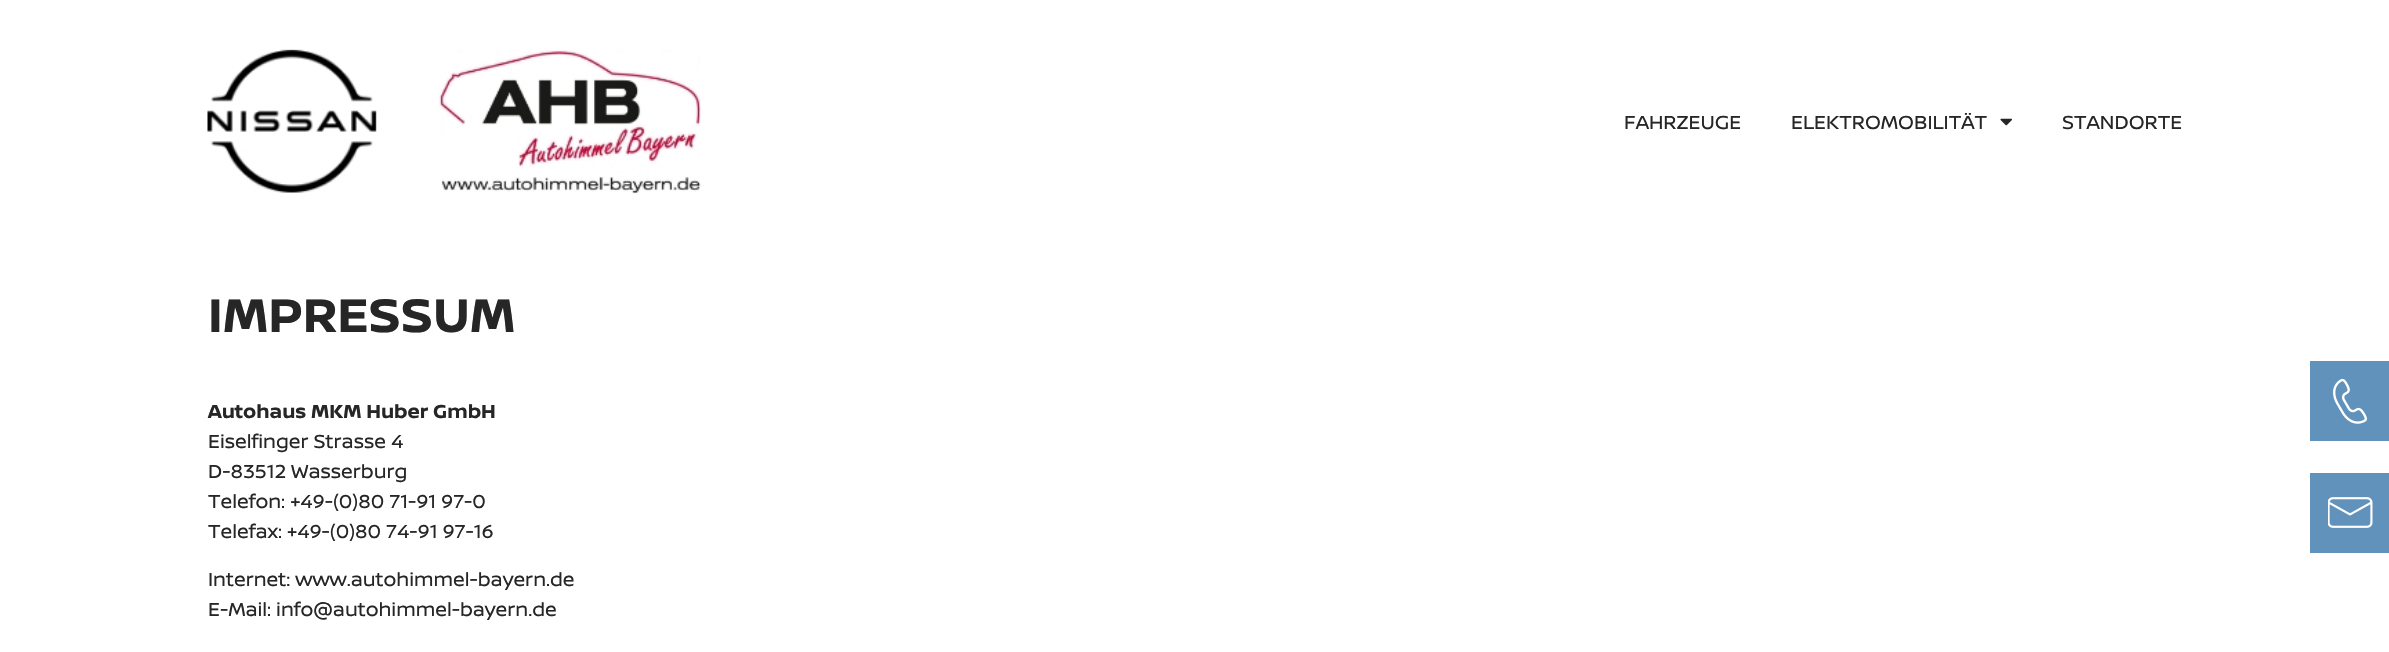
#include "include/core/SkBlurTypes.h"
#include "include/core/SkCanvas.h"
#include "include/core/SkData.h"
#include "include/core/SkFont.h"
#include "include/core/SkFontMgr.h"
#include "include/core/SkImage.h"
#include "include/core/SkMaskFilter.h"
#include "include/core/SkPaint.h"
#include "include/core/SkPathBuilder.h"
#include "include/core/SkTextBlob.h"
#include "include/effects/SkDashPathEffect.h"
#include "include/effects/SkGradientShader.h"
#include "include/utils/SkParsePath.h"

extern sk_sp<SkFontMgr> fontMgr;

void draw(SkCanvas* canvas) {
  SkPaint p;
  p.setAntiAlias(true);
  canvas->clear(SK_ColorWHITE);
  canvas->drawImageRect(SkImages::DeferredFromEncodedData(SkData::MakeFromFileName("images/1.png")), SkRect::MakeLTRB(207, 49, 701, 194), SkSamplingOptions());
  canvas->drawImageRect(SkImages::DeferredFromEncodedData(SkData::MakeFromFileName("images/2.png")), SkRect::MakeLTRB(2000, 118, 2012, 126), SkSamplingOptions());
  p.setColor(SkColorSetRGB(96, 146, 187));
  canvas->drawRect(SkRect::MakeLTRB(2310, 361, 2389, 441), p);
  canvas->drawImageRect(SkImages::DeferredFromEncodedData(SkData::MakeFromFileName("images/3.png")), SkRect::MakeLTRB(2333, 379, 2367, 424), SkSamplingOptions());
  canvas->drawRect(SkRect::MakeLTRB(2310, 473, 2389, 553), p);
  canvas->drawImageRect(SkImages::DeferredFromEncodedData(SkData::MakeFromFileName("images/4.png")), SkRect::MakeLTRB(2328, 497, 2373, 528), SkSamplingOptions());
  SkFont font1(fontMgr->matchFamilyStyle("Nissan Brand", SkFontStyle::Normal()), 20);
  font1.setSubpixel(true);
  p.setColor(SkColorSetRGB(38, 38, 38));
  canvas->drawString("FAHRZEUGE", 1624, 129, font1, p);
  canvas->drawString("ELEKTROMOBILITÄT", 1791, 129, font1, p);
  canvas->drawString("STANDORTE", 2062, 129, font1, p);
  SkFont font2(fontMgr->matchFamilyStyle("Nissan Brand", SkFontStyle::Bold()), 50);
  font2.setSubpixel(true);
  canvas->drawString("IMPRESSUM", 208, 332, font2, p);
  SkFont font3(fontMgr->matchFamilyStyle("Nissan Brand", SkFontStyle::Bold()), 20);
  font3.setSubpixel(true);
  canvas->drawString("Autohaus MKM Huber GmbH", 208, 418, font3, p);
  canvas->drawString("Eiselfinger Strasse 4", 208, 448, font1, p);
  canvas->drawString("D-83512 Wasserburg", 208, 478, font1, p);
  canvas->drawString("Telefon: +49-(0)80 71-91 97-0", 208, 508, font1, p);
  canvas->drawString("Telefax: +49-(0)80 74-91 97-16", 208, 538, font1, p);
  canvas->drawString("Internet: www.autohimmel-bayern.de", 208, 586, font1, p);
  canvas->drawString("E-Mail: info@autohimmel-bayern.de", 208, 616, font1, p);
}
